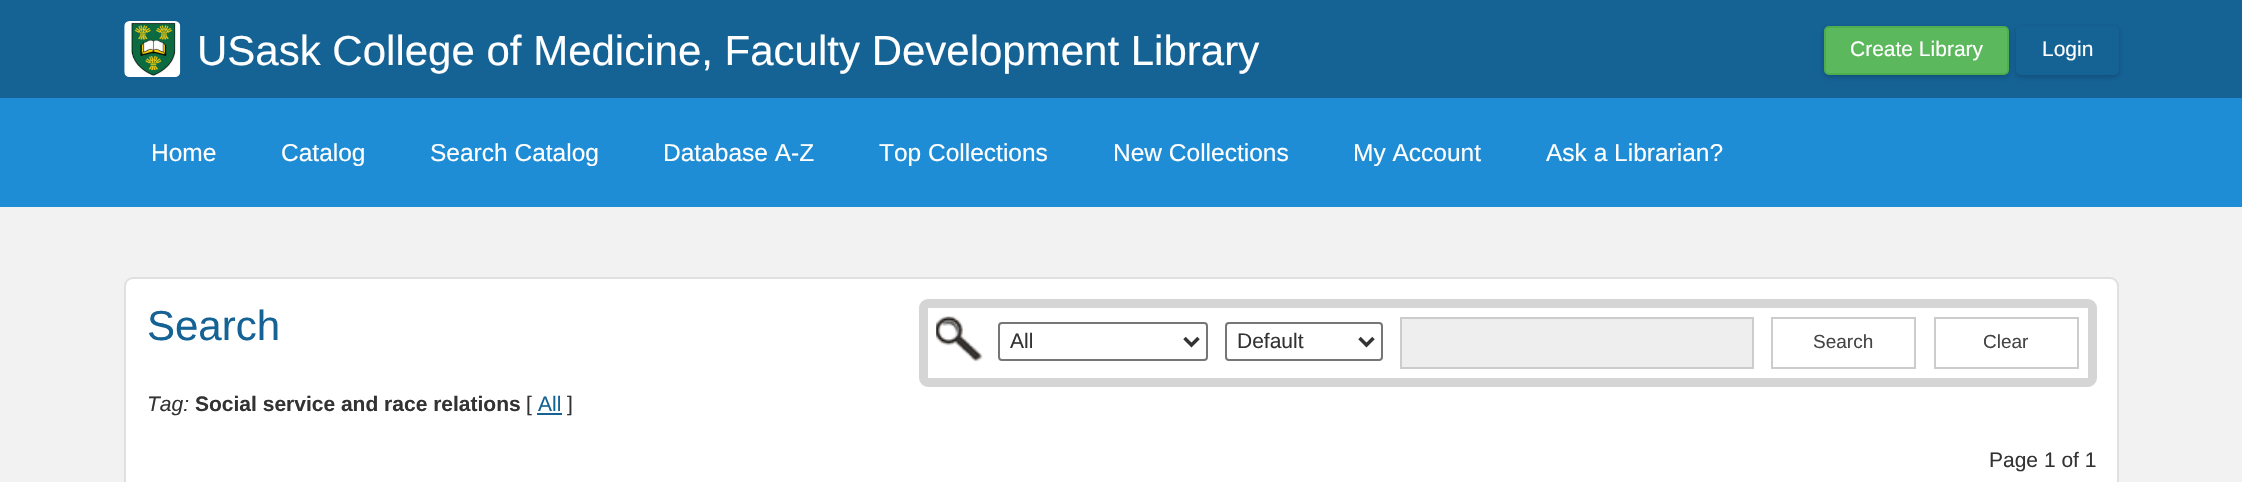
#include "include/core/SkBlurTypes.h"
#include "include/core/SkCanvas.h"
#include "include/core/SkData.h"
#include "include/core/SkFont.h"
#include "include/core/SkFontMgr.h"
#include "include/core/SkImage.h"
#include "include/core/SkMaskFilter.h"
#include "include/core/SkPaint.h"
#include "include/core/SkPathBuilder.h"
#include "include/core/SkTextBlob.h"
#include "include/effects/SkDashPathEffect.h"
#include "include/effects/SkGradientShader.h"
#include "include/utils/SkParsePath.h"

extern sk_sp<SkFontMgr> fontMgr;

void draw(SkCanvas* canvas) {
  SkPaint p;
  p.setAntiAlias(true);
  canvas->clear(SkColorSetRGB(242, 242, 242));
  p.setColor(SkColorSetRGB(21, 98, 149));
  canvas->drawRect(SkRect::MakeLTRB(0, 0, 2242, 98), p);
  canvas->drawImageRect(SkImages::DeferredFromEncodedData(SkData::MakeFromFileName("images/1.png")), SkRect::MakeLTRB(124, 21, 181, 77), SkSamplingOptions());
  p.setColor(SkColorSetARGB(51, 0, 0, 0));
  p.setMaskFilter(SkMaskFilter::MakeBlur(kNormal_SkBlurStyle, 2.5f));
  canvas->drawRoundRect(SkRect::MakeLTRB(1824, 28, 2009, 77), 5, 5, p);
  p.setMaskFilter(nullptr);
  p.setColor(SkColorSetRGB(92, 184, 92));
  canvas->drawRoundRect(SkRect::MakeLTRB(1825, 27, 2008, 74), 4, 4, p);
  p.setStyle(SkPaint::kStroke_Style);
  p.setStrokeWidth(2);
  p.setColor(SkColorSetRGB(76, 174, 76));
  canvas->drawRoundRect(SkRect::MakeLTRB(1825, 27, 2008, 74), 4, 4, p);
  p.setStyle(SkPaint::kFill_Style);
  p.setColor(SkColorSetARGB(51, 0, 0, 0));
  p.setMaskFilter(SkMaskFilter::MakeBlur(kNormal_SkBlurStyle, 2.5f));
  canvas->drawRoundRect(SkRect::MakeLTRB(2016, 28, 2119, 77), 5, 5, p);
  p.setMaskFilter(nullptr);
  p.setColor(SkColorSetRGB(21, 98, 149));
  canvas->drawRoundRect(SkRect::MakeLTRB(2017, 27, 2118, 74), 4, 4, p);
  p.setStyle(SkPaint::kStroke_Style);
  canvas->drawRoundRect(SkRect::MakeLTRB(2017, 27, 2118, 74), 4, 4, p);
  p.setStyle(SkPaint::kFill_Style);
  p.setColor(SkColorSetRGB(31, 141, 214));
  canvas->drawRect(SkRect::MakeLTRB(0, 98, 2242, 207), p);
  p.setColor(SK_ColorWHITE);
  canvas->drawRoundRect(SkRect::MakeLTRB(125, 278, 2118, 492), 8, 8, p);
  p.setStyle(SkPaint::kStroke_Style);
  p.setColor(SkColorSetRGB(224, 224, 224));
  canvas->drawRoundRect(SkRect::MakeLTRB(125, 278, 2118, 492), 8, 8, p);
  p.setStrokeWidth(9);
  p.setColor(SkColorSetRGB(213, 213, 213));
  canvas->drawRoundRect(SkRect::MakeLTRB(923.5f, 303.5f, 2092.5f, 382.5f), 4.5f, 4.5f, p);
  canvas->drawImageRect(SkImages::DeferredFromEncodedData(SkData::MakeFromFileName("images/2.png")), SkRect::MakeLTRB(936, 316, 983, 362), SkSamplingOptions());
  p.setStrokeWidth(2);
  p.setColor(SkColorSetRGB(118, 118, 118));
  canvas->drawRoundRect(SkRect::MakeLTRB(999, 323, 1207, 360), 3, 3, p);
  p.setStrokeWidth(3.5f);
  p.setColor(SkColorSetRGB(51, 51, 51));
  canvas->drawPath(SkPathBuilder().moveTo(1184.5f, 338).lineTo(1191.5f, 345).lineTo(1198.5f, 338).detach(), p);
  p.setStrokeWidth(2);
  p.setColor(SkColorSetRGB(118, 118, 118));
  canvas->drawRoundRect(SkRect::MakeLTRB(1226, 323, 1382, 360), 3, 3, p);
  p.setStrokeWidth(3.5f);
  p.setColor(SkColorSetRGB(51, 51, 51));
  canvas->drawPath(SkPathBuilder().moveTo(1359.5f, 338).lineTo(1366.5f, 345).lineTo(1373.5f, 338).detach(), p);
  p.setStyle(SkPaint::kFill_Style);
  p.setColor(SkColorSetRGB(238, 238, 238));
  canvas->drawRect(SkRect::MakeLTRB(1401, 318, 1753, 368), p);
  p.setStyle(SkPaint::kStroke_Style);
  p.setStrokeWidth(2);
  p.setColor(SkColorSetRGB(204, 204, 204));
  canvas->drawRect(SkRect::MakeLTRB(1401, 318, 1753, 368), p);
  canvas->drawRect(SkRect::MakeLTRB(1772, 318, 1915, 368), p);
  canvas->drawRect(SkRect::MakeLTRB(1935, 318, 2078, 368), p);
  p.setStyle(SkPaint::kFill_Style);
  p.setColor(SkColorSetRGB(21, 98, 149));
  canvas->drawRect(SkRect::MakeLTRB(537, 413, 562, 415), p);
  SkFont font1(fontMgr->matchFamilyStyle("Liberation Sans", SkFontStyle::Normal()), 42);
  font1.setSubpixel(true);
  p.setColor(SK_ColorWHITE);
  canvas->drawString("USask College of Medicine, Faculty Development Library", 197, 65, font1, p);
  SkFont font2(fontMgr->matchFamilyStyle("Liberation Sans", SkFontStyle::Normal()), 21);
  font2.setSubpixel(true);
  canvas->drawString("Create Library", 1850, 56, font2, p);
  canvas->drawString("Login", 2042, 56, font2, p);
  SkFont font3(fontMgr->matchFamilyStyle("Liberation Sans", SkFontStyle::Normal()), 24.5f);
  font3.setSubpixel(true);
  canvas->drawString("Home", 151, 161, font3, p);
  canvas->drawString("Catalog", 281, 161, font3, p);
  canvas->drawString("Search Catalog", 430, 161, font3, p);
  canvas->drawString("Database A-Z", 663, 161, font3, p);
  canvas->drawString("Top Collections", 879, 161, font3, p);
  canvas->drawString("New Collections", 1113, 161, font3, p);
  canvas->drawString("My Account", 1353, 161, font3, p);
  canvas->drawString("Ask a Librarian?", 1546, 161, font3, p);
  p.setColor(SkColorSetRGB(21, 98, 149));
  canvas->drawString("Search", 147, 340, font1, p);
  p.setColor(SkColorSetRGB(51, 51, 51));
  canvas->drawString("All", 1010, 348, font2, p);
  canvas->drawString("Default", 1237, 348, font2, p);
  SkFont font4(fontMgr->matchFamilyStyle("Liberation Sans", SkFontStyle::Normal()), 19);
  font4.setSubpixel(true);
  p.setColor(SkColorSetRGB(68, 68, 68));
  canvas->drawString("Search", 1813, 348, font4, p);
  canvas->drawString("Clear", 1983, 348, font4, p);
  SkFont font5(fontMgr->matchFamilyStyle("Liberation Sans", SkFontStyle::Italic()), 21);
  font5.setSubpixel(true);
  p.setColor(SkColorSetRGB(51, 51, 51));
  canvas->drawString("Tag:", 147, 411, font5, p);
  SkFont font6(fontMgr->matchFamilyStyle("Liberation Sans", SkFontStyle::Bold()), 21);
  font6.setSubpixel(true);
  canvas->drawString("Social service and race relations", 195, 411, font6, p);
  canvas->drawString("[", 526, 411, font2, p);
  p.setColor(SkColorSetRGB(21, 98, 149));
  canvas->drawString("All", 538, 411, font2, p);
  p.setColor(SkColorSetRGB(51, 51, 51));
  canvas->drawString("]", 567, 411, font2, p);
  canvas->drawString("Page 1 of 1", 1989, 467, font2, p);
}
